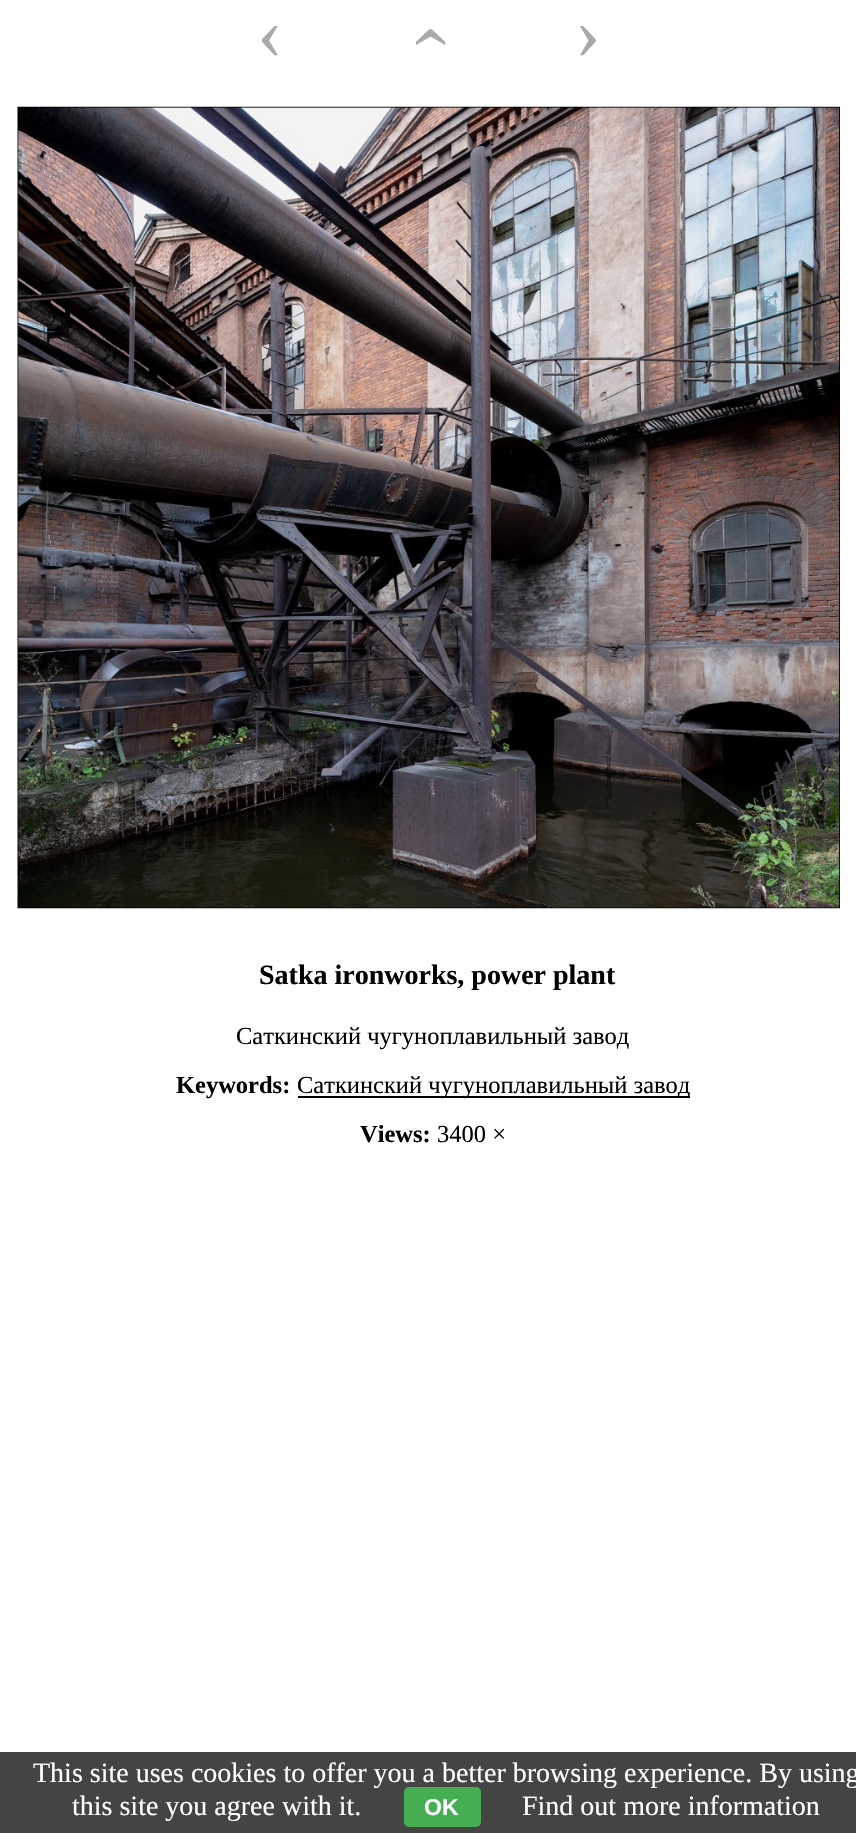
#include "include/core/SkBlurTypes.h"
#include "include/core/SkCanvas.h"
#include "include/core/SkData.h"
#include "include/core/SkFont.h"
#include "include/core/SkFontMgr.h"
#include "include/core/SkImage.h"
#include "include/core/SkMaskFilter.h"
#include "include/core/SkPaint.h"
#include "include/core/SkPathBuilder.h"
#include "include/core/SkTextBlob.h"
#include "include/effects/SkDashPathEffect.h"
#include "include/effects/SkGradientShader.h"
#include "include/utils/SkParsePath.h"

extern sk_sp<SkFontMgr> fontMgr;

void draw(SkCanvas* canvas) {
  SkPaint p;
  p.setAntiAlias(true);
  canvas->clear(SK_ColorWHITE);
  canvas->drawImageRect(SkImages::DeferredFromEncodedData(SkData::MakeFromFileName("images/1.png")), SkRect::MakeLTRB(17, 106, 840, 909), SkSamplingOptions());
  p.setColor(SK_ColorBLACK);
  canvas->drawRect(SkRect::MakeLTRB(298, 1096, 690, 1098), p);
  p.setColor(SkColorSetRGB(68, 68, 68));
  canvas->drawRect(SkRect::MakeLTRB(0, 1752, 856, 1833), p);
  SkFont font1(fontMgr->matchFamilyStyle("Liberation Serif", SkFontStyle::Normal()), 77);
  font1.setSubpixel(true);
  p.setColor(SkColorSetRGB(170, 170, 170));
  canvas->drawString("‹", 257, 58, font1, p);
  canvas->save();
  canvas->rotate(-90, 448, 50);
  canvas->drawString("›", 448, 50, font1, p);
  canvas->restore();
  canvas->drawString("›", 575, 58, font1, p);
  SkFont font2(fontMgr->matchFamilyStyle("Liberation Serif", SkFontStyle::Bold()), 28);
  font2.setSubpixel(true);
  p.setColor(SK_ColorBLACK);
  canvas->drawString("Satka ironworks, power plant", 259, 984, font2, p);
  SkFont font3(fontMgr->matchFamilyStyle("Liberation Serif", SkFontStyle::Normal()), 24.5f);
  font3.setSubpixel(true);
  canvas->drawString("Саткинский чугуноплавильный завод", 236, 1044, font3, p);
  SkFont font4(fontMgr->matchFamilyStyle("Liberation Serif", SkFontStyle::Bold()), 24.5f);
  font4.setSubpixel(true);
  canvas->drawString("Keywords:", 176, 1093, font4, p);
  canvas->drawString("Саткинский чугуноплавильный завод", 297, 1093, font3, p);
  canvas->drawString("Views:", 360, 1142, font4, p);
  canvas->drawString("3400 ×", 437, 1142, font3, p);
  SkFont font5(fontMgr->matchFamilyStyle("Liberation Serif", SkFontStyle::Normal()), 28);
  font5.setSubpixel(true);
  p.setColor(SK_ColorWHITE);
  canvas->drawString("This site uses cookies to offer you a better browsing experience. By using", 33, 1782, font5, p);
  canvas->drawString("this site you agree with it.", 72, 1815, font5, p);
  p.setColor(SkColorSetRGB(69, 174, 82));
  canvas->drawRoundRect(SkRect::MakeLTRB(404, 1787, 481, 1827), 5, 5, p);
  SkFont font6(fontMgr->matchFamilyStyle("Liberation Sans", SkFontStyle::Bold()), 23);
  font6.setSubpixel(true);
  p.setColor(SK_ColorWHITE);
  canvas->drawString("OK", 424, 1815, font6, p);
  canvas->drawString("Find out more information", 522, 1815, font5, p);
}
